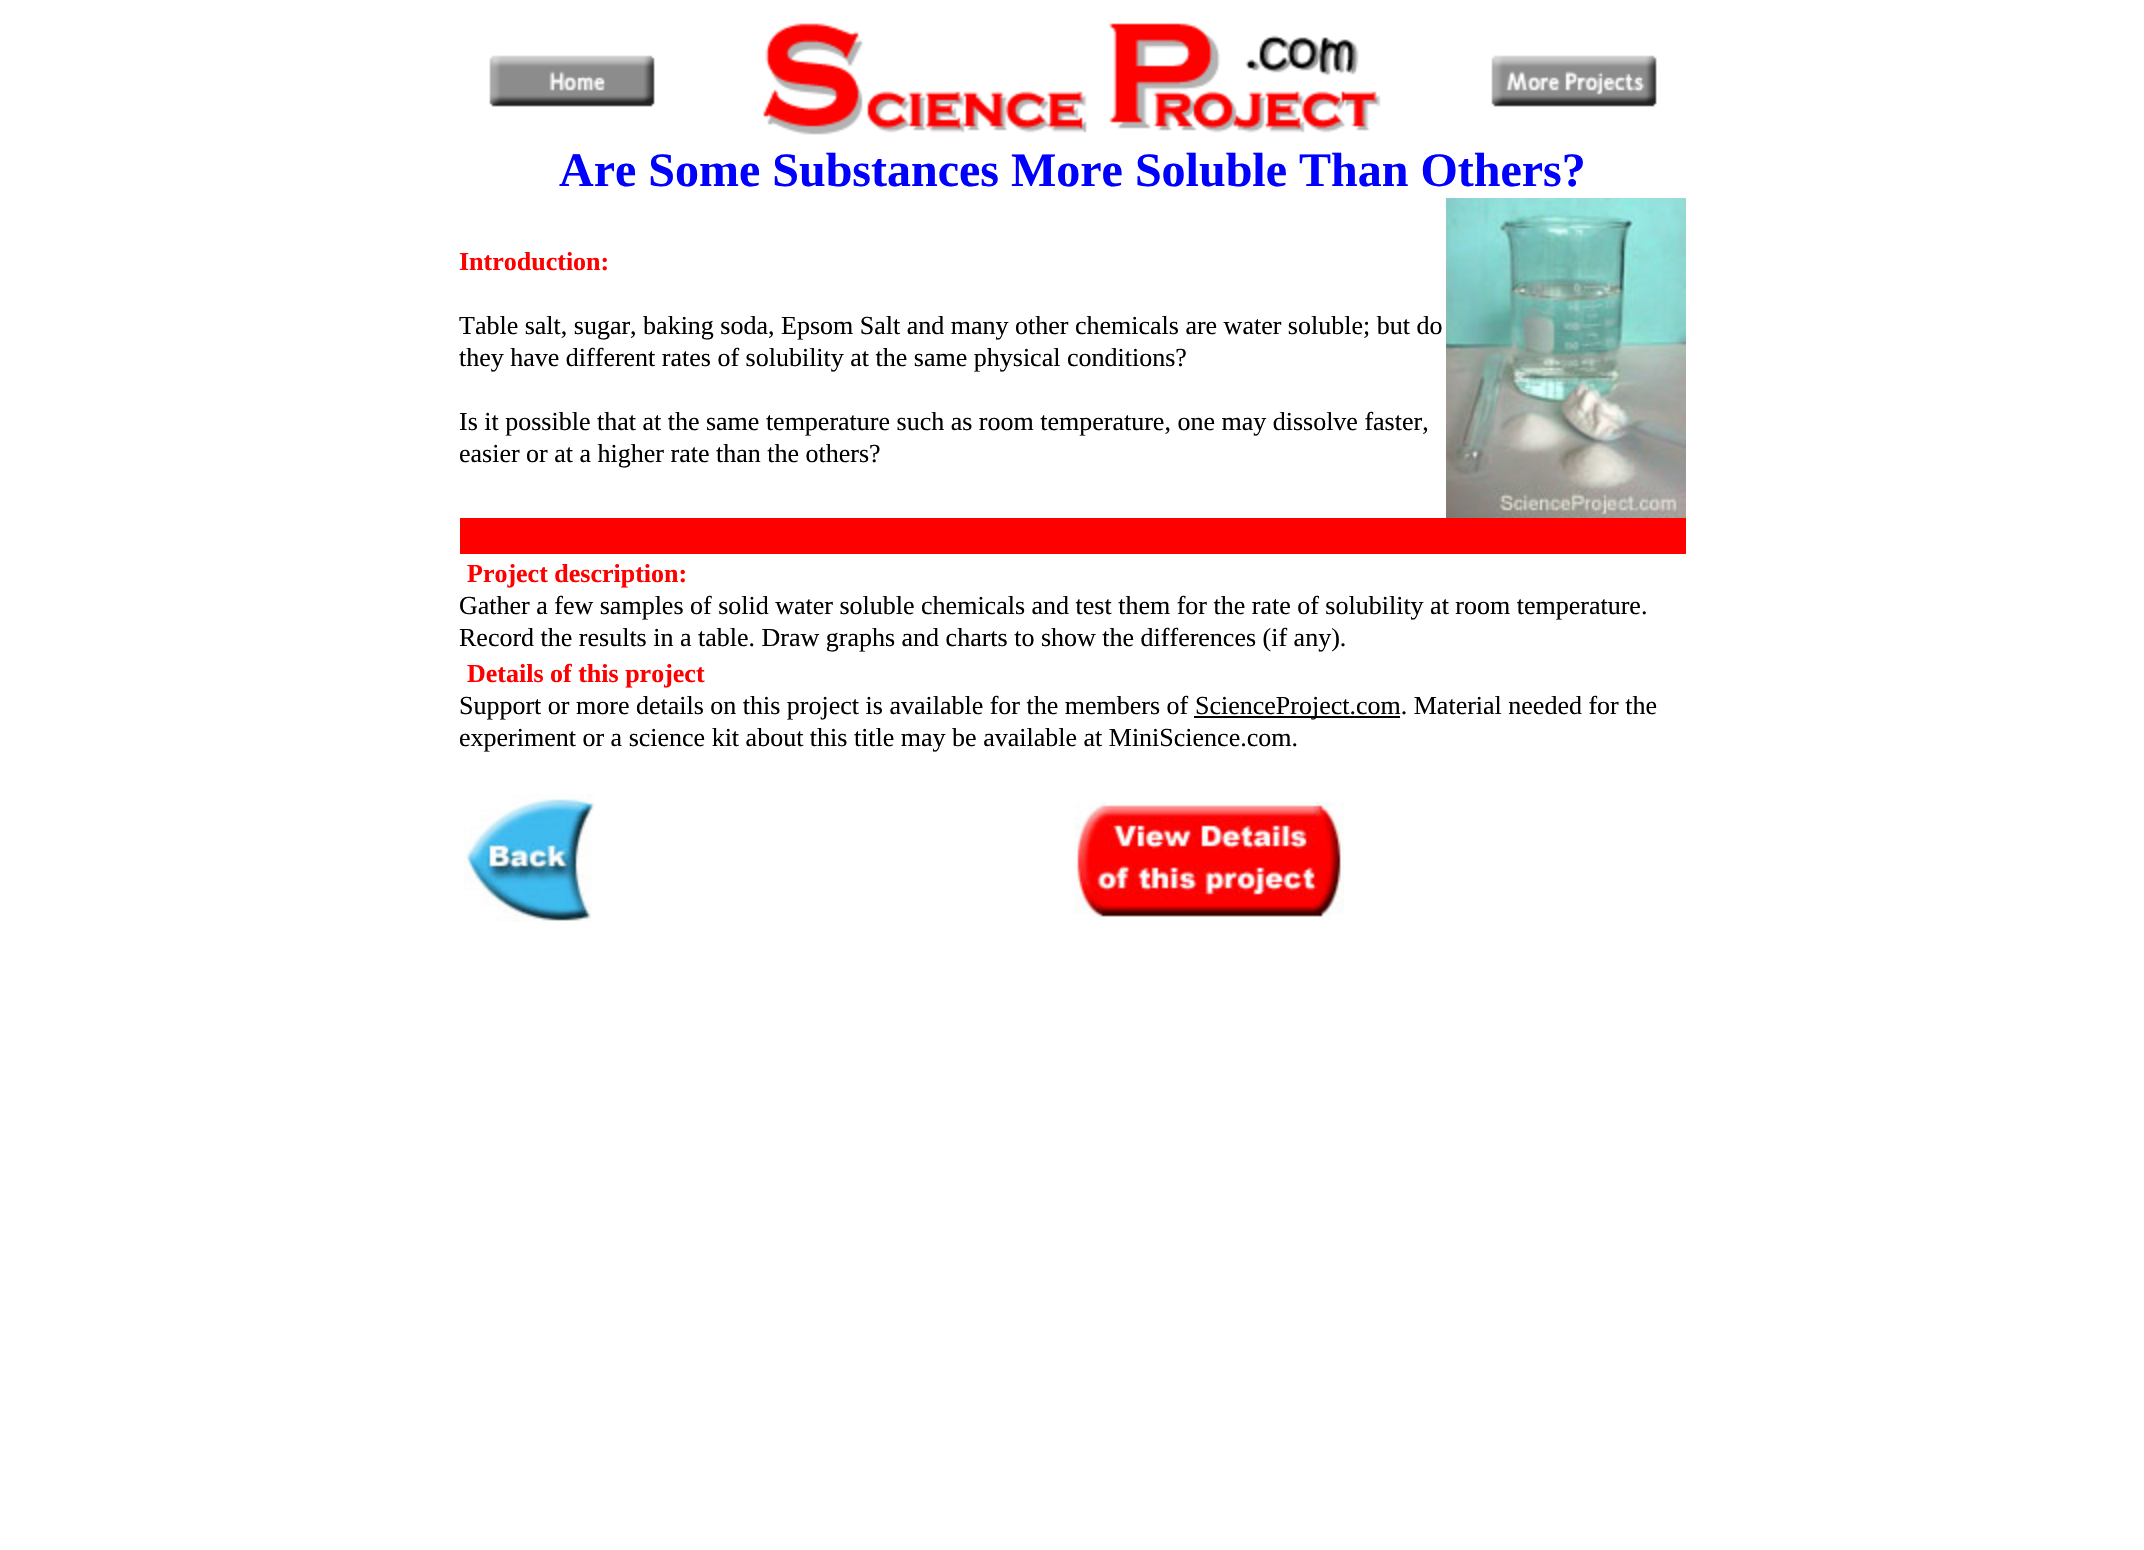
#include "include/core/SkBlurTypes.h"
#include "include/core/SkCanvas.h"
#include "include/core/SkData.h"
#include "include/core/SkFont.h"
#include "include/core/SkFontMgr.h"
#include "include/core/SkImage.h"
#include "include/core/SkMaskFilter.h"
#include "include/core/SkPaint.h"
#include "include/core/SkPathBuilder.h"
#include "include/core/SkTextBlob.h"
#include "include/effects/SkDashPathEffect.h"
#include "include/effects/SkGradientShader.h"
#include "include/utils/SkParsePath.h"

extern sk_sp<SkFontMgr> fontMgr;

void draw(SkCanvas* canvas) {
  SkPaint p;
  p.setAntiAlias(true);
  canvas->clear(SK_ColorWHITE);
  canvas->drawImageRect(SkImages::DeferredFromEncodedData(SkData::MakeFromFileName("images/1.png")), SkRect::MakeLTRB(489, 55, 655, 107), SkSamplingOptions());
  canvas->drawImageRect(SkImages::DeferredFromEncodedData(SkData::MakeFromFileName("images/2.png")), SkRect::MakeLTRB(763, 23, 1381, 135), SkSamplingOptions());
  canvas->drawImageRect(SkImages::DeferredFromEncodedData(SkData::MakeFromFileName("images/3.png")), SkRect::MakeLTRB(1491, 55, 1657, 107), SkSamplingOptions());
  canvas->drawImageRect(SkImages::DeferredFromEncodedData(SkData::MakeFromFileName("images/4.png")), SkRect::MakeLTRB(1446, 198, 1686, 518), SkSamplingOptions());
  p.setColor(SkColorSetRGB(255, 0, 0));
  canvas->drawRect(SkRect::MakeLTRB(460, 518, 1686, 554), p);
  p.setColor(SK_ColorBLACK);
  canvas->drawRect(SkRect::MakeLTRB(1194, 716, 1400, 718), p);
  canvas->drawImageRect(SkImages::DeferredFromEncodedData(SkData::MakeFromFileName("images/5.png")), SkRect::MakeLTRB(464, 794, 595, 922), SkSamplingOptions());
  canvas->drawImageRect(SkImages::DeferredFromEncodedData(SkData::MakeFromFileName("images/6.png")), SkRect::MakeLTRB(1074, 802, 1344, 920), SkSamplingOptions());
  SkFont font1(fontMgr->matchFamilyStyle("Liberation Serif", SkFontStyle::Bold()), 48);
  font1.setSubpixel(true);
  p.setColor(SkColorSetRGB(0, 0, 255));
  canvas->drawString("Are Some Substances More Soluble Than Others?", 559, 186, font1, p);
  SkFont font2(fontMgr->matchFamilyStyle("Liberation Serif", SkFontStyle::Bold()), 26);
  font2.setSubpixel(true);
  p.setColor(SkColorSetRGB(255, 0, 0));
  canvas->drawString("Introduction:", 459, 270, font2, p);
  SkFont font3(fontMgr->matchFamilyStyle("Liberation Serif", SkFontStyle::Normal()), 26);
  font3.setSubpixel(true);
  p.setColor(SK_ColorBLACK);
  canvas->drawString("Table salt, sugar, baking soda, Epsom Salt and many other chemicals are water soluble; but do", 459, 334, font3, p);
  canvas->drawString("they have different rates of solubility at the same physical conditions?", 459, 366, font3, p);
  canvas->drawString("Is it possible that at the same temperature such as room temperature, one may dissolve faster,", 459, 430, font3, p);
  canvas->drawString("easier or at a higher rate than the others?", 459, 462, font3, p);
  p.setColor(SkColorSetRGB(255, 0, 0));
  canvas->drawString("Project description:", 467, 582, font2, p);
  p.setColor(SK_ColorBLACK);
  canvas->drawString("Gather a few samples of solid water soluble chemicals and test them for the rate of solubility at room temperature.", 459, 614, font3, p);
  canvas->drawString("Record the results in a table. Draw graphs and charts to show the differences (if any).", 459, 646, font3, p);
  p.setColor(SkColorSetRGB(255, 0, 0));
  canvas->drawString("Details of this project", 467, 682, font2, p);
  p.setColor(SK_ColorBLACK);
  canvas->drawString("Support or more details on this project is available for the members of", 459, 714, font3, p);
  canvas->drawString("ScienceProject.com. Material needed for the", 1195, 714, font3, p);
  canvas->drawString("experiment or a science kit about this title may be available at MiniScience.com.", 459, 746, font3, p);
}
